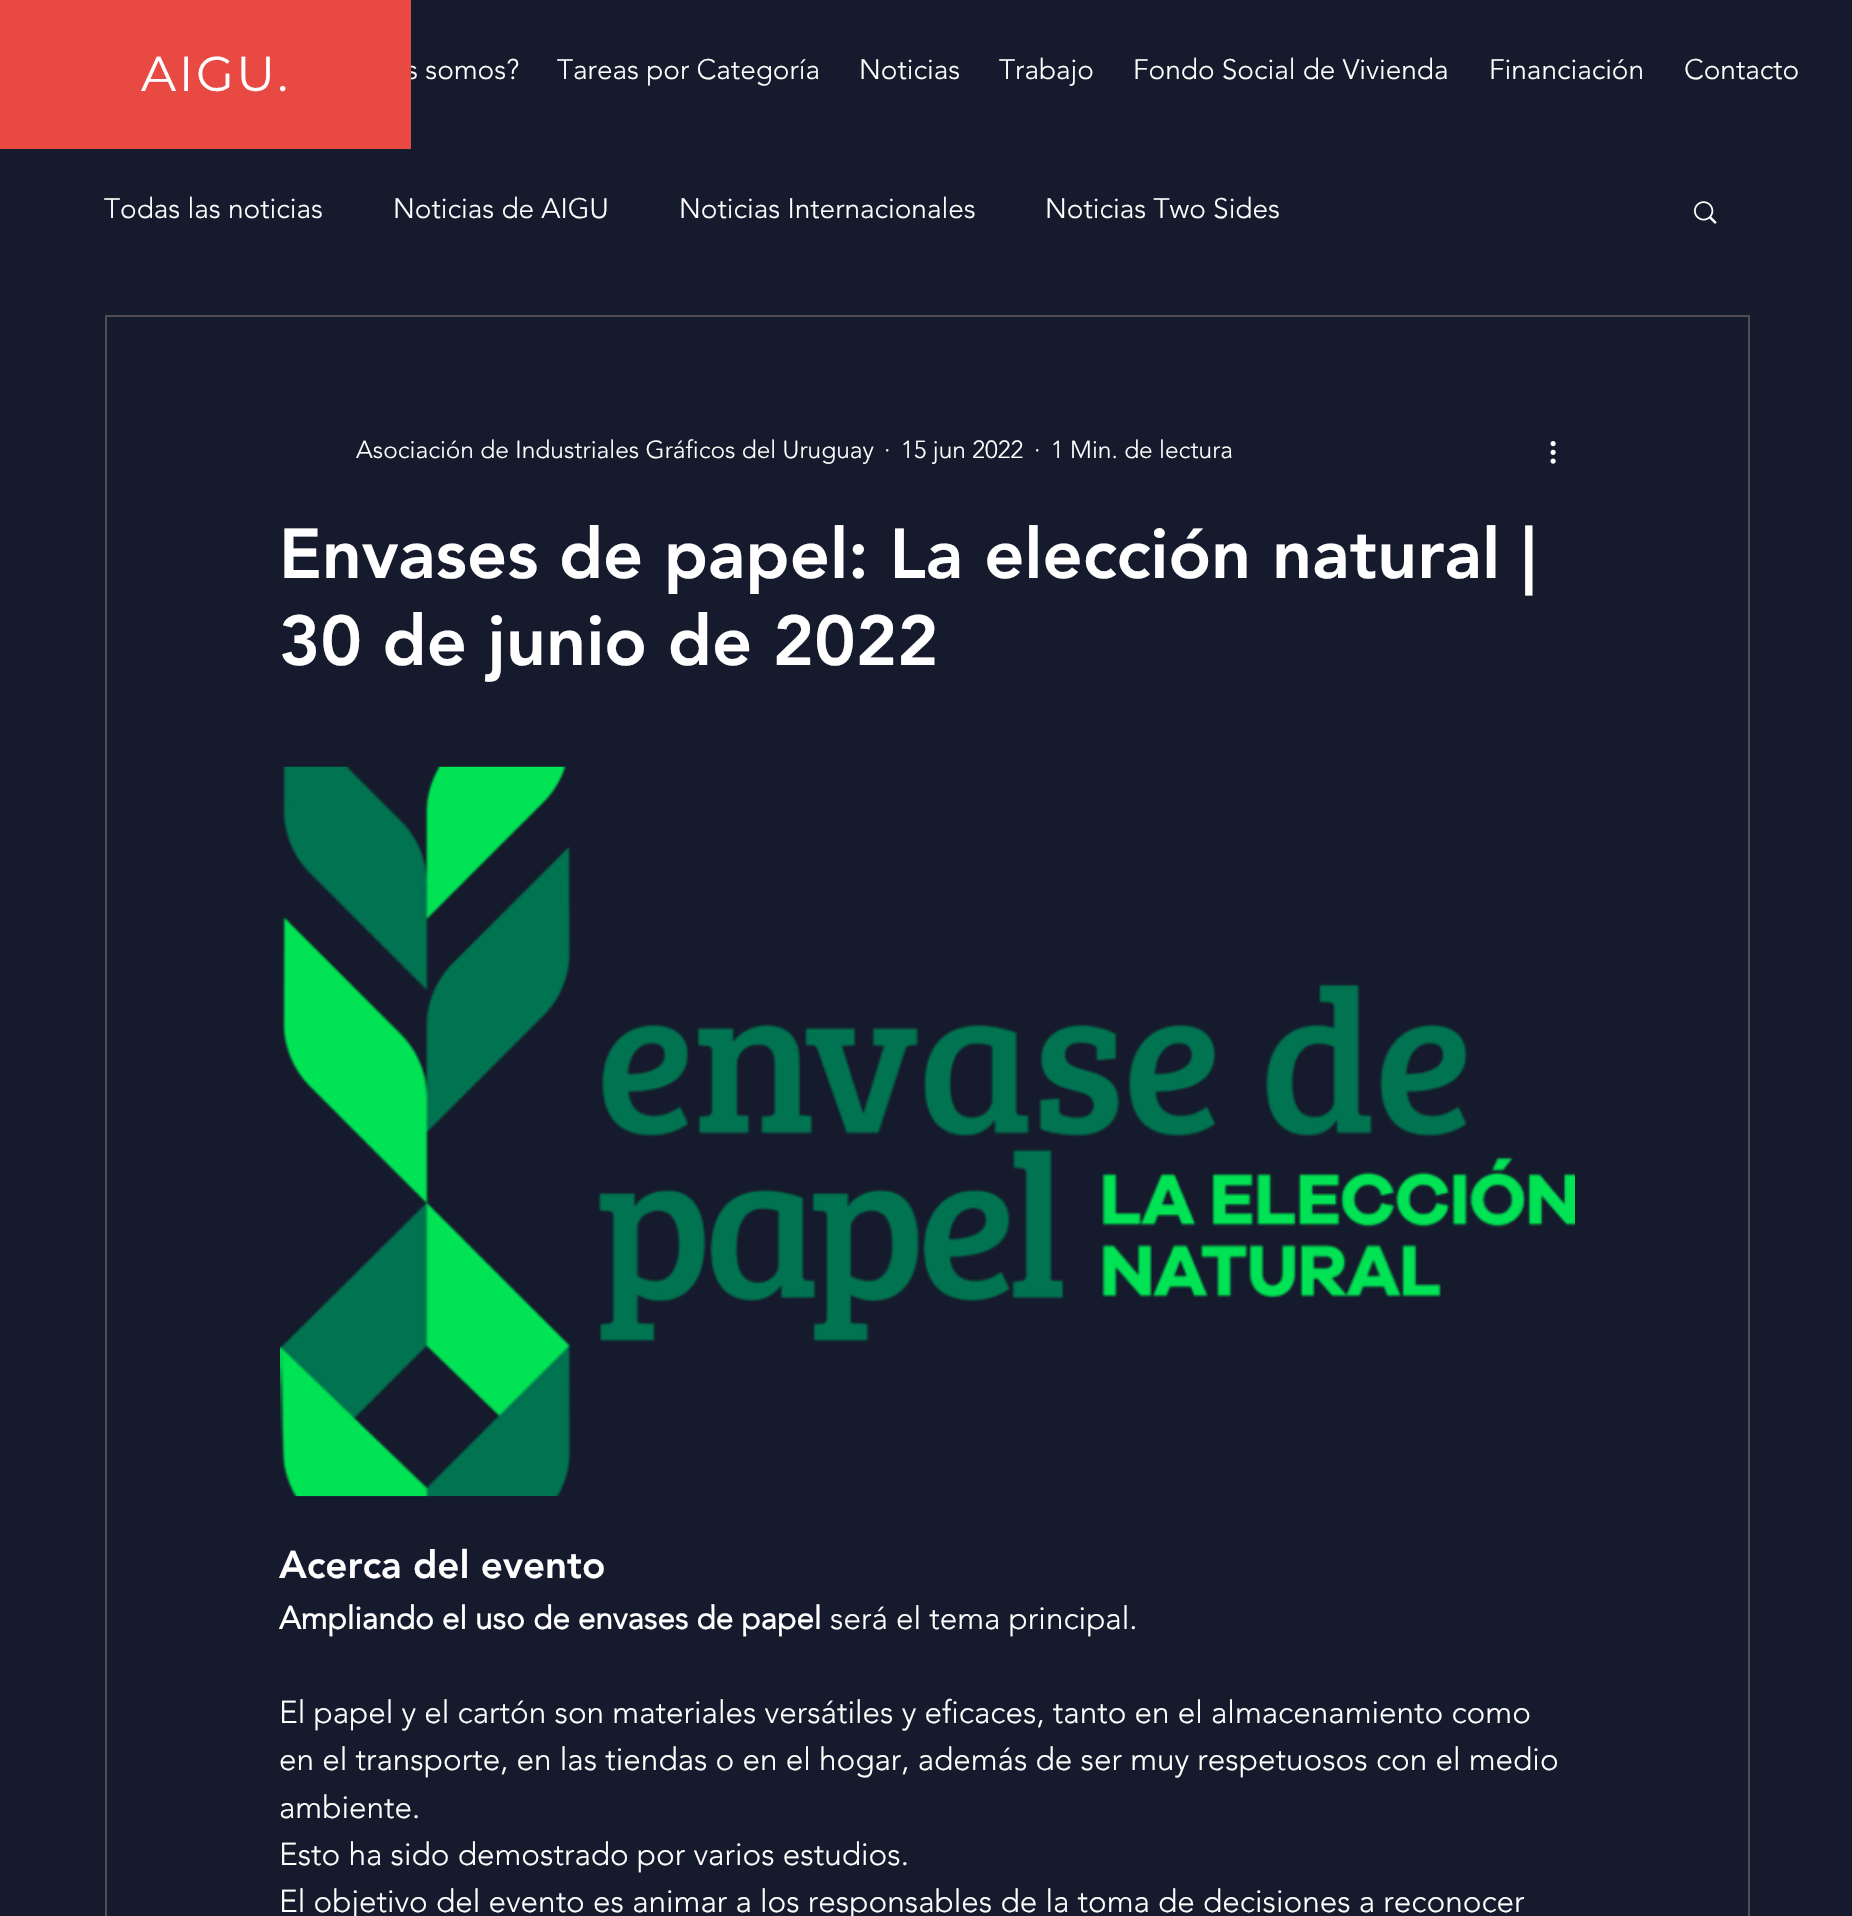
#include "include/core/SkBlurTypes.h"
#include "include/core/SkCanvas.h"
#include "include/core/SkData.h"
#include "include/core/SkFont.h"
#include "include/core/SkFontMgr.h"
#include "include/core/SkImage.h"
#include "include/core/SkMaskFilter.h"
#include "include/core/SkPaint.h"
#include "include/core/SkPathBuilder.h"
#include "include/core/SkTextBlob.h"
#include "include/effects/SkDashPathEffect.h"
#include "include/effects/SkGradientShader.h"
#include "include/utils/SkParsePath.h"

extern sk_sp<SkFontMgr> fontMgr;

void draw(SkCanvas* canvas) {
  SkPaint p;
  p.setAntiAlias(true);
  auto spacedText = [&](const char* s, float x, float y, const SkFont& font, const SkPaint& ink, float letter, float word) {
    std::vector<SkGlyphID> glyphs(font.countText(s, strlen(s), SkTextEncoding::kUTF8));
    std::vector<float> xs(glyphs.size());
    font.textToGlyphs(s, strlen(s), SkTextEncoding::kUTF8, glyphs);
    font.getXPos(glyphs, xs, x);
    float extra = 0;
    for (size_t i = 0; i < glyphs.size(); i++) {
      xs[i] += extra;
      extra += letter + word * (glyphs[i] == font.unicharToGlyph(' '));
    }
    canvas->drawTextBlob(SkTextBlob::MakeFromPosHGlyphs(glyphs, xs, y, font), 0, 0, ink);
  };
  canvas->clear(SkColorSetRGB(21, 26, 44));
  canvas->drawImageRect(SkImages::DeferredFromEncodedData(SkData::MakeFromFileName("images/1.png")), SkRect::MakeLTRB(1694, 201, 1717, 224), SkSamplingOptions());
  p.setStyle(SkPaint::kStroke_Style);
  p.setStrokeWidth(2);
  p.setColor(SkColorSetRGB(77, 77, 82));
  canvas->drawRect(SkRect::MakeLTRB(106, 316, 1749, 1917), p);
  canvas->drawImageRect(SkImages::DeferredFromEncodedData(SkData::MakeFromFileName("images/2.png")), SkRect::MakeLTRB(1550, 441, 1556, 464), SkSamplingOptions());
  canvas->drawImageRect(SkImages::DeferredFromEncodedData(SkData::MakeFromFileName("images/3.png")), SkRect::MakeLTRB(280, 766, 1575, 1497), SkSamplingOptions());
  SkFont font1(fontMgr->matchFamilyStyle("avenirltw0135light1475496", SkFontStyle(300, SkFontStyle::kNormal_Width, SkFontStyle::kUpright_Slant)), 28);
  font1.setSubpixel(true);
  p.setStyle(SkPaint::kFill_Style);
  p.setColor(SK_ColorWHITE);
  canvas->drawString("s somos?", 406, 79, font1, p);
  p.setColor(SkColorSetRGB(232, 74, 67));
  canvas->drawRect(SkRect::MakeLTRB(0, 0, 411, 149), p);
  SkFont font2(fontMgr->matchFamilyStyle("Montserrat", SkFontStyle::Normal()), 49);
  font2.setSubpixel(true);
  p.setColor(SK_ColorWHITE);
  spacedText("AIGU.", 141, 91, font2, p, 2.5f, 0);
  canvas->drawString("Tareas por Categoría", 557, 79, font1, p);
  canvas->drawString("Noticias", 859, 79, font1, p);
  canvas->drawString("Trabajo", 999, 79, font1, p);
  canvas->drawString("Fondo Social de Vivienda", 1133, 79, font1, p);
  canvas->drawString("Financiación", 1489, 79, font1, p);
  canvas->drawString("Contacto", 1684, 79, font1, p);
  canvas->drawString("Todas las noticias", 104, 218, font1, p);
  canvas->drawString("Noticias de AIGU", 393, 218, font1, p);
  canvas->drawString("Noticias Internacionales", 679, 218, font1, p);
  canvas->drawString("Noticias Two Sides", 1045, 218, font1, p);
  SkFont font3(fontMgr->matchFamilyStyle("avenirltw0135light1475496", SkFontStyle(300, SkFontStyle::kNormal_Width, SkFontStyle::kUpright_Slant)), 24.5f);
  font3.setSubpixel(true);
  canvas->drawString("Asociación de Industriales Gráficos del Uruguay", 356, 458, font3, p);
  canvas->drawString("·", 884, 458, font3, p);
  canvas->drawString("15 jun 2022", 901, 458, font3, p);
  canvas->drawString("·", 1034, 458, font3, p);
  canvas->drawString("1 Min. de lectura", 1051, 458, font3, p);
  SkFont font4(fontMgr->matchFamilyStyle("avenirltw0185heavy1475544", SkFontStyle(900, SkFontStyle::kNormal_Width, SkFontStyle::kUpright_Slant)), 70);
  font4.setSubpixel(true);
  canvas->drawString("Envases de papel: La elección natural |", 279, 578, font4, p);
  canvas->drawString("30 de junio de 2022", 279, 665, font4, p);
  SkFont font5(fontMgr->matchFamilyStyle("avenirltw0185heavy1475544", SkFontStyle(900, SkFontStyle::kNormal_Width, SkFontStyle::kUpright_Slant)), 38.5f);
  font5.setSubpixel(true);
  canvas->drawString("Acerca del evento", 279, 1578, font5, p);
  SkFont font6(fontMgr->matchFamilyStyle("avenirltw0135light1475496", SkFontStyle::Bold()), 31.5f);
  font6.setSubpixel(true);
  canvas->drawString("Ampliando el uso de envases de papel", 279, 1629, font6, p);
  SkFont font7(fontMgr->matchFamilyStyle("avenirltw0135light1475496", SkFontStyle(300, SkFontStyle::kNormal_Width, SkFontStyle::kUpright_Slant)), 31.5f);
  font7.setSubpixel(true);
  canvas->drawString("será el tema principal.", 830, 1629, font7, p);
  canvas->drawString("El papel y el cartón son materiales versátiles y eficaces, tanto en el almacenamiento como", 279, 1723, font7, p);
  canvas->drawString("en el transporte, en las tiendas o en el hogar, además de ser muy respetuosos con el medio", 279, 1770, font7, p);
  canvas->drawString("ambiente.", 279, 1818, font7, p);
  canvas->drawString("Esto ha sido demostrado por varios estudios.", 279, 1865, font7, p);
  canvas->drawString("El objetivo del evento es animar a los responsables de la toma de decisiones a reconocer", 279, 1912, font7, p);
}
